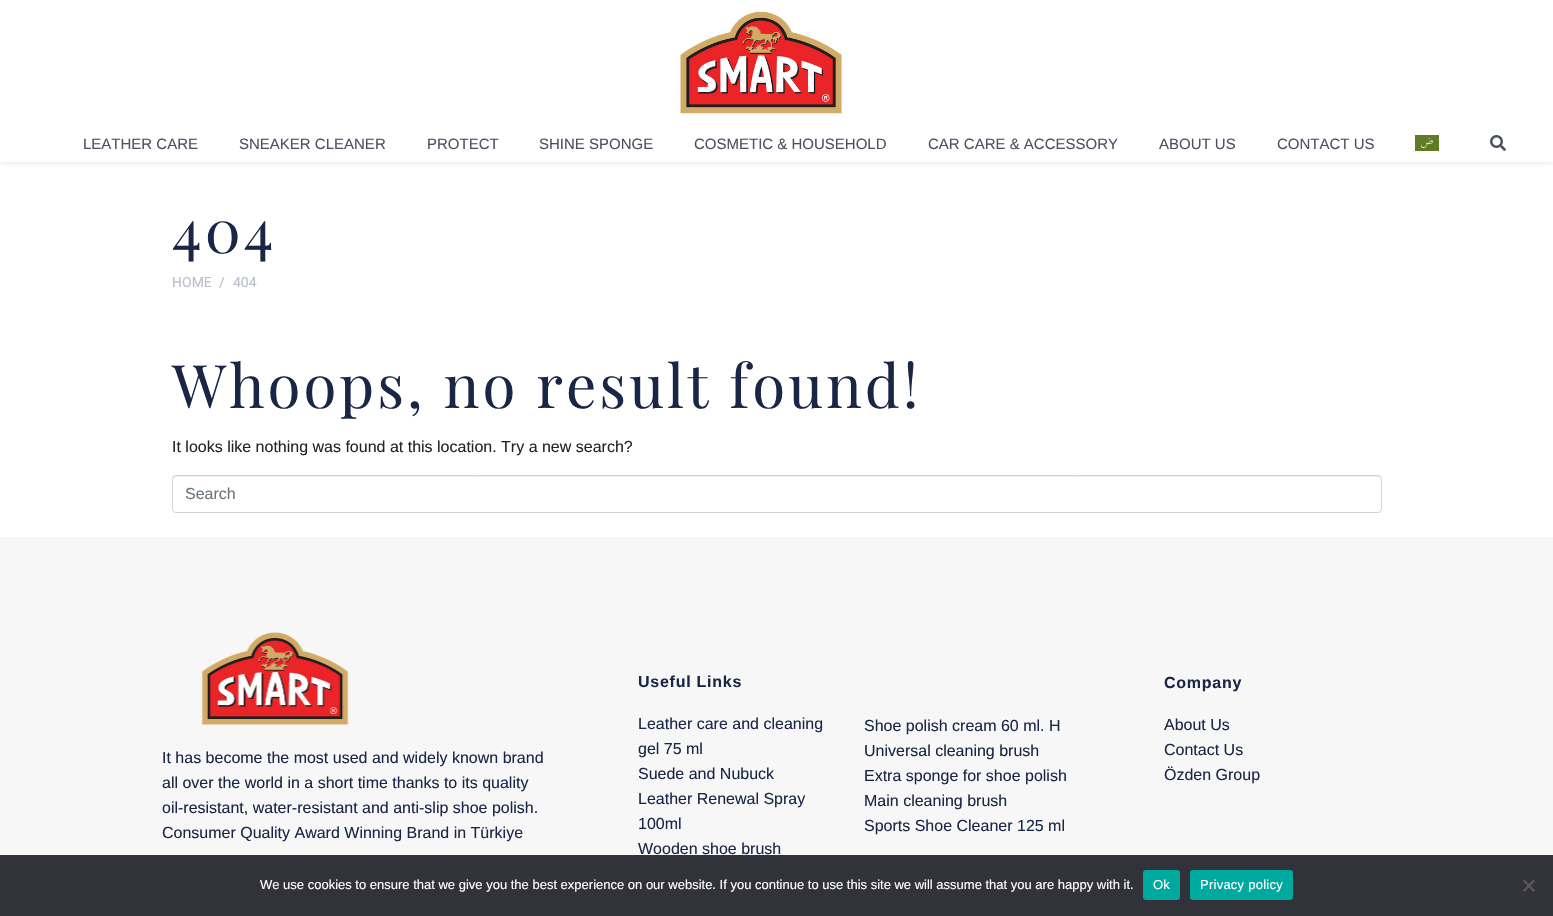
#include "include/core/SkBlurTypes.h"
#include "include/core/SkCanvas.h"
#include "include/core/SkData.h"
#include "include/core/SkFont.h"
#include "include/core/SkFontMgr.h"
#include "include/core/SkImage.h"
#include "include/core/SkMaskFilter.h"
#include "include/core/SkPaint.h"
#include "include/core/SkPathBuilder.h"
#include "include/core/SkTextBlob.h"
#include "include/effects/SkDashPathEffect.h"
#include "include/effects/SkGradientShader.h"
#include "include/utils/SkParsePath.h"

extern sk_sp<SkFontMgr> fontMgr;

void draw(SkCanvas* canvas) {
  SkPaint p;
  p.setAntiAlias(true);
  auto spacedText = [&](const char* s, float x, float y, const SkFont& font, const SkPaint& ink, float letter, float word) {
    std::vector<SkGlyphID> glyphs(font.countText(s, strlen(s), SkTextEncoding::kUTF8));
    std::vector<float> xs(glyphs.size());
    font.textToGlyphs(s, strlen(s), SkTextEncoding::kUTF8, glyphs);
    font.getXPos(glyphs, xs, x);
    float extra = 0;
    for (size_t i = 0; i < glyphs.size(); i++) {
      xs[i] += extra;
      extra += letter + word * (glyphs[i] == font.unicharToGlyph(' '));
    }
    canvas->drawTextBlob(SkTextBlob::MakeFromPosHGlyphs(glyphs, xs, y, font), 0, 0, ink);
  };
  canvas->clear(SK_ColorWHITE);
  canvas->save();
  canvas->clipRect(SkRect::MakeLTRB(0, 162, 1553, 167));
  p.setColor(SkColorSetARGB(128, 218, 218, 218));
  p.setMaskFilter(SkMaskFilter::MakeBlur(kNormal_SkBlurStyle, 2));
  canvas->drawRect(SkRect::MakeLTRB(0, 2, 1553, 164), p);
  p.setMaskFilter(nullptr);
  canvas->restore();
  canvas->drawImageRect(SkImages::DeferredFromEncodedData(SkData::MakeFromFileName("images/1.png")), SkRect::MakeLTRB(680, 11, 842, 114), SkSamplingOptions());
  canvas->drawImageRect(SkImages::DeferredFromEncodedData(SkData::MakeFromFileName("images/2.png")), SkRect::MakeLTRB(1415, 135, 1439, 151), SkSamplingOptions());
  canvas->drawImageRect(SkImages::DeferredFromEncodedData(SkData::MakeFromFileName("images/3.png")), SkRect::MakeLTRB(1490, 135, 1506, 151), SkSamplingOptions());
  p.setColor(SkColorSetRGB(236, 236, 236));
  canvas->drawPath(SkPathBuilder().moveTo(176, 477).lineTo(1378, 477).cubicTo(1380, 477, 1381, 478, 1381, 480).lineTo(1381, 479).cubicTo(1381, 477, 1380, 476, 1378, 476).lineTo(176, 476).cubicTo(174, 476, 173, 477, 173, 479).lineTo(173, 480).cubicTo(173, 478, 174, 477, 176, 477).close().detach(), p);
  p.setStyle(SkPaint::kStroke_Style);
  p.setStrokeWidth(1);
  p.setColor(SkColorSetRGB(206, 212, 218));
  canvas->drawRoundRect(SkRect::MakeLTRB(172.5f, 475.5f, 1381.5f, 512.5f), 3.5f, 3.5f, p);
  p.setStyle(SkPaint::kFill_Style);
  p.setColor(SkColorSetRGB(247, 247, 247));
  canvas->drawRect(SkRect::MakeLTRB(0, 537, 1553, 855), p);
  canvas->drawImageRect(SkImages::DeferredFromEncodedData(SkData::MakeFromFileName("images/4.png")), SkRect::MakeLTRB(201, 632, 349, 725), SkSamplingOptions());
  p.setColor(SkColorSetRGB(50, 50, 58));
  canvas->drawRect(SkRect::MakeLTRB(0, 855, 1553, 916), p);
  p.setColor(SkColorSetRGB(0, 169, 157));
  canvas->drawRoundRect(SkRect::MakeLTRB(1143, 870, 1180, 900), 3, 3, p);
  canvas->drawRoundRect(SkRect::MakeLTRB(1190, 870, 1293, 900), 3, 3, p);
  p.setColor(SkColorSetRGB(89, 89, 93));
  canvas->drawPath(SkPathBuilder().moveTo(1533.5f, 879.5f).lineTo(1535, 881).lineTo(1524.5f, 892).lineTo(1523, 890.5f).close().detach(), p);
  canvas->drawPath(SkPathBuilder().moveTo(1523, 881).lineTo(1524.5f, 879.5f).lineTo(1535, 890.5f).lineTo(1533.5f, 892).close().detach(), p);
  SkFont font1(fontMgr->matchFamilyStyle("Liberation Sans", SkFontStyle::Normal()), 15);
  font1.setSubpixel(true);
  p.setColor(SkColorSetRGB(76, 82, 98));
  canvas->drawString("LEATHER CARE", 83, 149, font1, p);
  canvas->drawString("SNEAKER CLEANER", 239, 149, font1, p);
  canvas->drawString("PROTECT", 427, 149, font1, p);
  canvas->drawString("SHINE SPONGE", 539, 149, font1, p);
  canvas->drawString("COSMETIC & HOUSEHOLD", 694, 149, font1, p);
  canvas->drawString("CAR CARE & ACCESSORY", 928, 149, font1, p);
  canvas->drawString("ABOUT US", 1159, 149, font1, p);
  canvas->drawString("CONTACT US", 1277, 149, font1, p);
  SkFont font2(fontMgr->matchFamilyStyle("Playfair Display", SkFontStyle::Normal()), 60);
  font2.setSubpixel(true);
  p.setColor(SkColorSetRGB(26, 38, 69));
  spacedText("404", 172, 253, font2, p, 3, 0);
  SkFont font3(fontMgr->matchFamilyStyle("Heebo", SkFontStyle::Normal()), 14);
  font3.setSubpixel(true);
  p.setColor(SkColorSetRGB(186, 190, 202));
  canvas->drawString("HOME", 172, 287, font3, p);
  canvas->drawString("/", 219, 287, font3, p);
  canvas->drawString("404", 233, 287, font3, p);
  p.setColor(SkColorSetRGB(26, 38, 69));
  spacedText("Whoops, no result found!", 172, 408, font2, p, 3, 0);
  SkFont font4(fontMgr->matchFamilyStyle("Liberation Sans", SkFontStyle::Normal()), 16);
  font4.setSubpixel(true);
  p.setColor(SkColorSetRGB(33, 37, 41));
  canvas->drawString("It looks like nothing was found at this location. Try a new search?", 172, 452, font4, p);
  p.setColor(SkColorSetRGB(108, 117, 125));
  canvas->drawString("Search", 185, 499, font4, p);
  p.setColor(SkColorSetRGB(26, 38, 69));
  canvas->drawString("It has become the most used and widely known brand", 162, 763, font4, p);
  canvas->drawString("all over the world in a short time thanks to its quality", 162, 788, font4, p);
  canvas->drawString("oil-resistant, water-resistant and anti-slip shoe polish.", 162, 813, font4, p);
  canvas->drawString("Consumer Quality Award Winning Brand in Türkiye", 162, 838, font4, p);
  SkFont font5(fontMgr->matchFamilyStyle("Liberation Sans", SkFontStyle::Bold()), 16);
  font5.setSubpixel(true);
  spacedText("Useful Links", 638, 687, font5, p, 0.75f, 0);
  canvas->drawString("Leather care and cleaning", 638, 729, font4, p);
  canvas->drawString("gel 75 ml", 638, 754, font4, p);
  canvas->drawString("Suede and Nubuck", 638, 779, font4, p);
  canvas->drawString("Leather Renewal Spray", 638, 804, font4, p);
  canvas->drawString("100ml", 638, 829, font4, p);
  canvas->drawString("Wooden shoe brush", 638, 854, font4, p);
  canvas->drawString("Shoe polish cream 60 ml. H", 864, 731, font4, p);
  canvas->drawString("Universal cleaning brush", 864, 756, font4, p);
  canvas->drawString("Extra sponge for shoe polish", 864, 781, font4, p);
  canvas->drawString("Main cleaning brush", 864, 806, font4, p);
  canvas->drawString("Sports Shoe Cleaner 125 ml", 864, 831, font4, p);
  spacedText("Company", 1164, 688, font5, p, 0.75f, 0);
  canvas->drawString("About Us", 1164, 730, font4, p);
  canvas->drawString("Contact Us", 1164, 755, font4, p);
  canvas->drawString("Özden Group", 1164, 780, font4, p);
  SkFont font6(fontMgr->matchFamilyStyle("Liberation Sans", SkFontStyle::Normal()), 13);
  font6.setSubpixel(true);
  p.setColor(SK_ColorWHITE);
  canvas->drawString("We use cookies to ensure that we give you the best experience on our website. If you continue to use this site we will assume that you are happy with it.", 260, 889, font6, p);
  spacedText("Ok", 1153, 889, font6, p, 0.25f, 0);
  spacedText("Privacy policy", 1200, 889, font6, p, 0.25f, 0);
}
